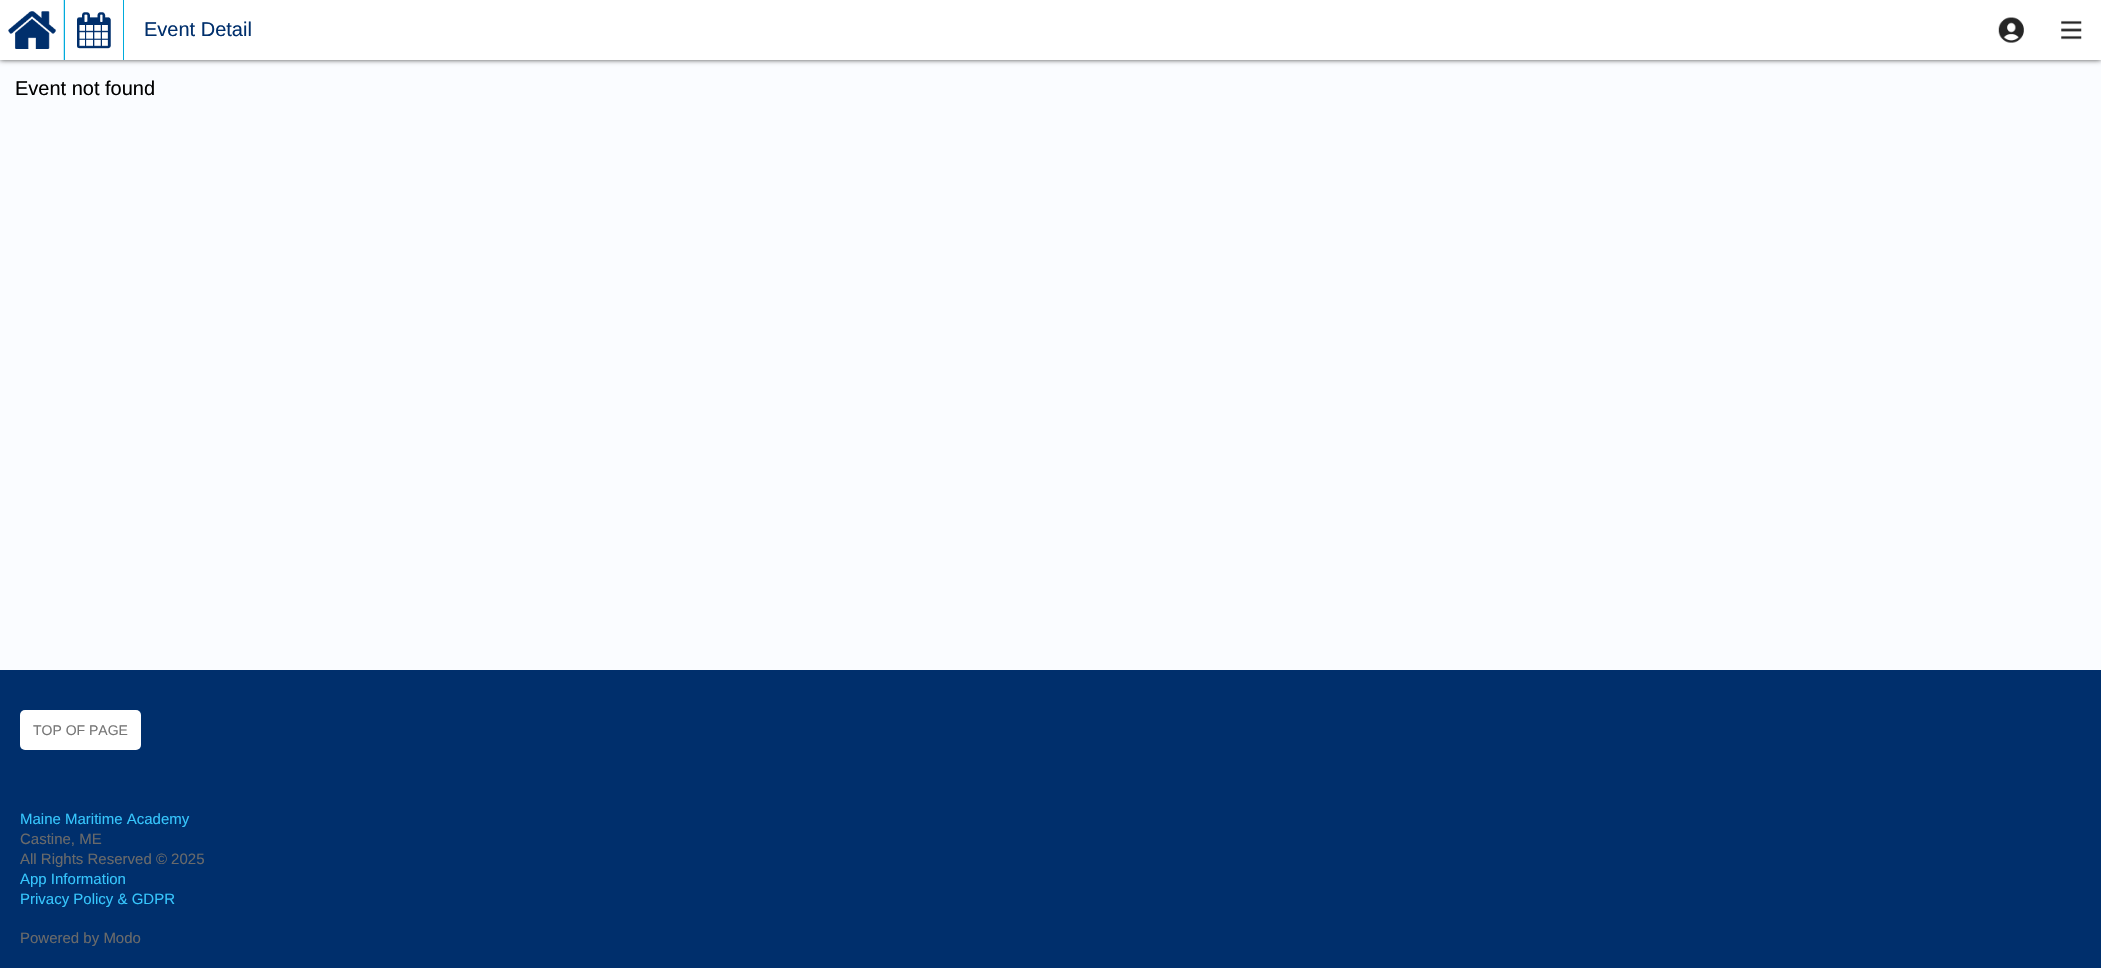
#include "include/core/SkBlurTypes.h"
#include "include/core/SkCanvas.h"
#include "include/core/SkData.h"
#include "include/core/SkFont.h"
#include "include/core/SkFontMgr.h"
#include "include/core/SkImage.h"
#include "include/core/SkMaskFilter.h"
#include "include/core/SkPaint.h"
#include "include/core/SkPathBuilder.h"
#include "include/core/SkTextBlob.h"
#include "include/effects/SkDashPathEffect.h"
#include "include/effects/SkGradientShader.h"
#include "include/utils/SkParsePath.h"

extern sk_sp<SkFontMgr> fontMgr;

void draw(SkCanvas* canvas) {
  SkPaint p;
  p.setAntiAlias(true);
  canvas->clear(SkColorSetRGB(0, 47, 108));
  p.setColor(SkColorSetRGB(250, 252, 255));
  canvas->drawRect(SkRect::MakeLTRB(0, 60, 2101, 670), p);
  p.setColor(SkColorSetARGB(179, 0, 0, 0));
  p.setMaskFilter(SkMaskFilter::MakeBlur(kNormal_SkBlurStyle, 2.5f));
  canvas->drawRect(SkRect::MakeLTRB(0, 0, 2101, 60), p);
  p.setMaskFilter(nullptr);
  p.setColor(SK_ColorWHITE);
  canvas->drawRect(SkRect::MakeLTRB(0, 0, 2101, 60), p);
  canvas->drawImageRect(SkImages::DeferredFromEncodedData(SkData::MakeFromFileName("images/1.png")), SkRect::MakeLTRB(8, 0, 65, 60), SkSamplingOptions());
  p.setColor(SkColorSetRGB(0, 171, 220));
  canvas->drawRect(SkRect::MakeLTRB(123, 0, 124, 60), p);
  canvas->drawImageRect(SkImages::DeferredFromEncodedData(SkData::MakeFromFileName("images/2.png")), SkRect::MakeLTRB(77, 12, 111, 49), SkSamplingOptions());
  canvas->drawImageRect(SkImages::DeferredFromEncodedData(SkData::MakeFromFileName("images/3.png")), SkRect::MakeLTRB(1998, 17, 2024, 43), SkSamplingOptions());
  canvas->drawImageRect(SkImages::DeferredFromEncodedData(SkData::MakeFromFileName("images/4.png")), SkRect::MakeLTRB(2061, 20, 2082, 40), SkSamplingOptions());
  p.setColor(SK_ColorWHITE);
  canvas->drawRoundRect(SkRect::MakeLTRB(20, 710, 141, 750), 5, 5, p);
  SkFont font1(fontMgr->matchFamilyStyle("Liberation Sans", SkFontStyle::Normal()), 20);
  font1.setSubpixel(true);
  p.setColor(SkColorSetRGB(0, 47, 108));
  canvas->drawString("Event Detail", 144, 36, font1, p);
  p.setColor(SK_ColorBLACK);
  canvas->drawString("Event not found", 15, 95, font1, p);
  SkFont font2(fontMgr->matchFamilyStyle("Liberation Sans", SkFontStyle::Normal()), 14);
  font2.setSubpixel(true);
  p.setColor(SkColorSetRGB(118, 118, 118));
  canvas->drawString("TOP OF PAGE", 33, 735, font2, p);
  SkFont font3(fontMgr->matchFamilyStyle("Liberation Sans", SkFontStyle::Normal()), 15);
  font3.setSubpixel(true);
  p.setColor(SkColorSetRGB(54, 198, 253));
  canvas->drawString("Maine Maritime Academy", 20, 824, font3, p);
  p.setColor(SkColorSetRGB(106, 106, 106));
  canvas->drawString("Castine, ME", 20, 844, font3, p);
  canvas->drawString("All Rights Reserved © 2025", 20, 864, font3, p);
  p.setColor(SkColorSetRGB(54, 198, 253));
  canvas->drawString("App Information", 20, 884, font3, p);
  canvas->drawString("Privacy Policy & GDPR", 20, 904, font3, p);
  p.setColor(SkColorSetRGB(106, 106, 106));
  canvas->drawString("Powered by Modo", 20, 943, font3, p);
}
